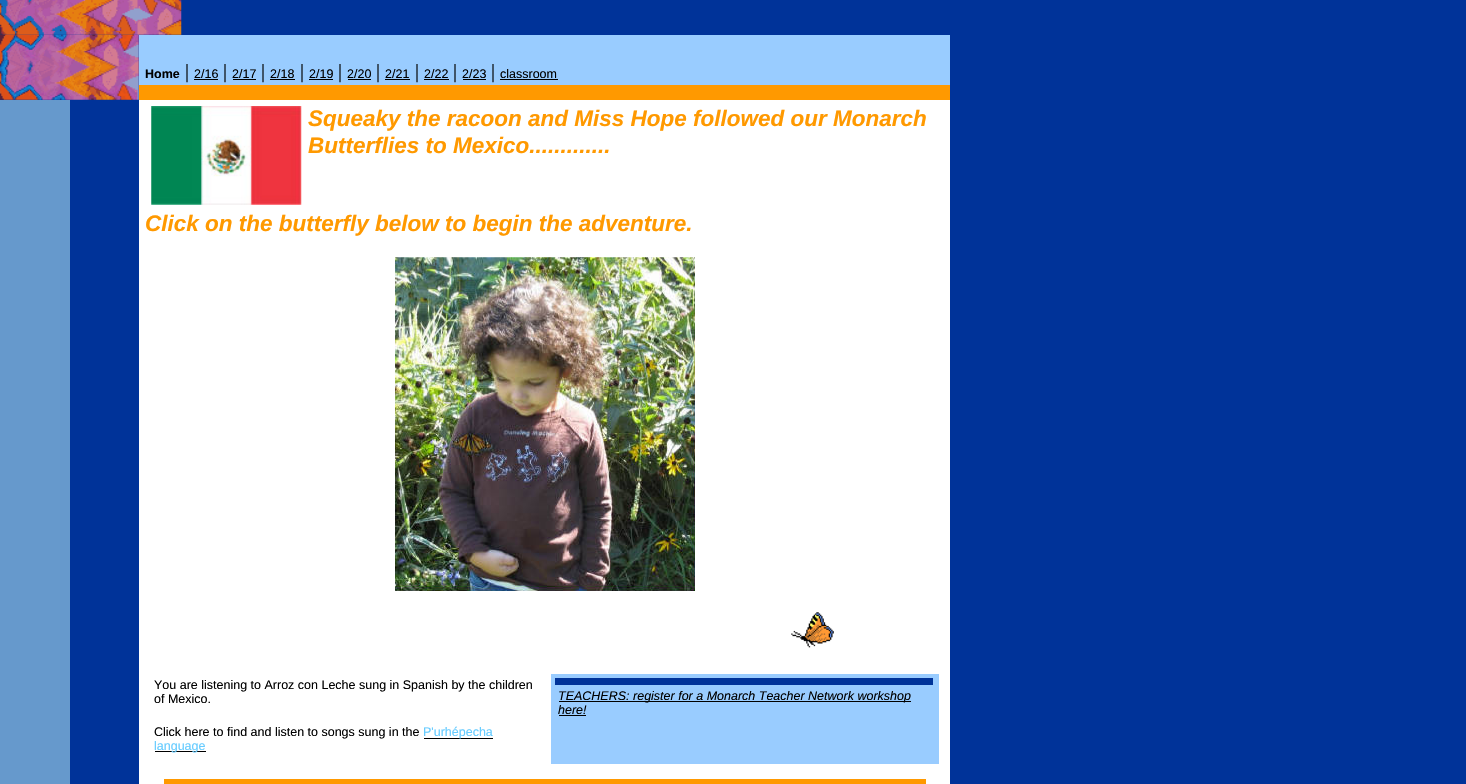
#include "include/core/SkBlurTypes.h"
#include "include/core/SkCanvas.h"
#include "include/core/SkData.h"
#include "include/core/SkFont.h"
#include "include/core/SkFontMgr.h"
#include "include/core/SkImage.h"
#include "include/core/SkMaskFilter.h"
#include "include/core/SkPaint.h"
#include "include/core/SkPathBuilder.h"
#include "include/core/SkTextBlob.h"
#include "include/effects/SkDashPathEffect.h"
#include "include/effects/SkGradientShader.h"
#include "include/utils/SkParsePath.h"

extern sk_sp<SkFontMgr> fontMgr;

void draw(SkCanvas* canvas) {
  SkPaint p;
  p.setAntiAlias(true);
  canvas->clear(SkColorSetRGB(0, 51, 153));
  canvas->drawImageRect(SkImages::DeferredFromEncodedData(SkData::MakeFromFileName("images/1.png")), SkRect::MakeLTRB(0, 0, 182, 35), SkSamplingOptions());
  canvas->drawImageRect(SkImages::DeferredFromEncodedData(SkData::MakeFromFileName("images/2.png")), SkRect::MakeLTRB(0, 34, 139, 100), SkSamplingOptions());
  p.setColor(SkColorSetRGB(153, 204, 255));
  canvas->drawRect(SkRect::MakeLTRB(139, 35, 950, 85), p);
  p.setColor(SK_ColorBLACK);
  canvas->drawRect(SkRect::MakeLTRB(194, 79, 218, 80), p);
  canvas->drawRect(SkRect::MakeLTRB(233, 79, 256, 80), p);
  canvas->drawRect(SkRect::MakeLTRB(270, 79, 295, 80), p);
  canvas->drawRect(SkRect::MakeLTRB(309, 79, 333, 80), p);
  canvas->drawRect(SkRect::MakeLTRB(348, 79, 371, 80), p);
  canvas->drawRect(SkRect::MakeLTRB(385, 79, 410, 80), p);
  canvas->drawRect(SkRect::MakeLTRB(424, 79, 449, 80), p);
  canvas->drawRect(SkRect::MakeLTRB(463, 79, 486, 80), p);
  canvas->drawRect(SkRect::MakeLTRB(500, 79, 558, 80), p);
  p.setColor(SkColorSetRGB(255, 153, 0));
  canvas->drawRect(SkRect::MakeLTRB(139, 85, 950, 100), p);
  p.setColor(SkColorSetRGB(102, 153, 204));
  canvas->drawRect(SkRect::MakeLTRB(0, 100, 70, 784), p);
  p.setColor(SK_ColorWHITE);
  canvas->drawRect(SkRect::MakeLTRB(139, 100, 950, 784), p);
  canvas->drawImageRect(SkImages::DeferredFromEncodedData(SkData::MakeFromFileName("images/3.png")), SkRect::MakeLTRB(151, 106, 302, 205), SkSamplingOptions());
  canvas->drawImageRect(SkImages::DeferredFromEncodedData(SkData::MakeFromFileName("images/4.png")), SkRect::MakeLTRB(395, 257, 695, 591), SkSamplingOptions());
  canvas->drawImageRect(SkImages::DeferredFromEncodedData(SkData::MakeFromFileName("images/5.png")), SkRect::MakeLTRB(791, 612, 834, 648), SkSamplingOptions());
  p.setColor(SK_ColorBLACK);
  canvas->drawRect(SkRect::MakeLTRB(424, 738, 493, 739), p);
  canvas->drawRect(SkRect::MakeLTRB(155, 751, 206, 752), p);
  p.setColor(SkColorSetRGB(153, 204, 255));
  canvas->drawRect(SkRect::MakeLTRB(551, 674, 939, 764), p);
  p.setColor(SkColorSetRGB(0, 51, 153));
  canvas->drawRect(SkRect::MakeLTRB(555, 678, 933, 685), p);
  p.setColor(SK_ColorBLACK);
  canvas->drawRect(SkRect::MakeLTRB(559, 701, 911, 702), p);
  canvas->drawRect(SkRect::MakeLTRB(559, 715, 586, 716), p);
  p.setColor(SkColorSetRGB(255, 153, 0));
  canvas->drawRect(SkRect::MakeLTRB(164, 779, 926, 784), p);
  SkFont font1(fontMgr->matchFamilyStyle("Liberation Sans", SkFontStyle::Bold()), 12.5f);
  font1.setSubpixel(true);
  p.setColor(SK_ColorBLACK);
  canvas->drawString("Home", 145, 78, font1, p);
  SkFont font2(fontMgr->matchFamilyStyle("Liberation Serif", SkFontStyle::Normal()), 20);
  font2.setSubpixel(true);
  canvas->drawString("|", 185, 78, font2, p);
  SkFont font3(fontMgr->matchFamilyStyle("Liberation Sans", SkFontStyle::Normal()), 12.5f);
  font3.setSubpixel(true);
  canvas->drawString("2/16", 194, 78, font3, p);
  canvas->drawString("|", 223, 78, font2, p);
  canvas->drawString("2/17", 232, 78, font3, p);
  canvas->drawString("|", 261, 78, font2, p);
  canvas->drawString("2/18", 270, 78, font3, p);
  canvas->drawString("|", 300, 78, font2, p);
  canvas->drawString("2/19", 309, 78, font3, p);
  canvas->drawString("|", 338, 78, font2, p);
  canvas->drawString("2/20", 347, 78, font3, p);
  canvas->drawString("|", 376, 78, font2, p);
  canvas->drawString("2/21", 385, 78, font3, p);
  canvas->drawString("|", 415, 78, font2, p);
  canvas->drawString("2/22", 424, 78, font3, p);
  canvas->drawString("|", 453, 78, font2, p);
  canvas->drawString("2/23", 462, 78, font3, p);
  canvas->drawString("|", 491, 78, font2, p);
  canvas->drawString("classroom", 500, 78, font3, p);
  SkFont font4(fontMgr->matchFamilyStyle("Liberation Sans", SkFontStyle::BoldItalic()), 22.5f);
  font4.setSubpixel(true);
  p.setColor(SkColorSetRGB(255, 153, 0));
  canvas->drawString("Squeaky the racoon and Miss Hope followed our Monarch", 308, 126, font4, p);
  canvas->drawString("Butterflies to Mexico.............", 308, 153, font4, p);
  canvas->drawString("Click on the butterfly below to begin the adventure.", 145, 231, font4, p);
  p.setColor(SK_ColorBLACK);
  canvas->drawString("You are listening to Arroz con Leche sung in Spanish by the children", 154, 689, font3, p);
  canvas->drawString("of Mexico.", 154, 703, font3, p);
  canvas->drawString("Click here to find and listen to songs sung in the", 154, 736, font3, p);
  p.setColor(SkColorSetRGB(102, 204, 255));
  canvas->drawString("P'urhépecha", 423, 736, font3, p);
  canvas->drawString("language", 154, 750, font3, p);
  SkFont font5(fontMgr->matchFamilyStyle("Liberation Sans", SkFontStyle::Italic()), 12.5f);
  font5.setSubpixel(true);
  p.setColor(SK_ColorBLACK);
  canvas->drawString("TEACHERS: register for a Monarch Teacher Network workshop", 558, 700, font5, p);
  canvas->drawString("here!", 558, 714, font5, p);
}
